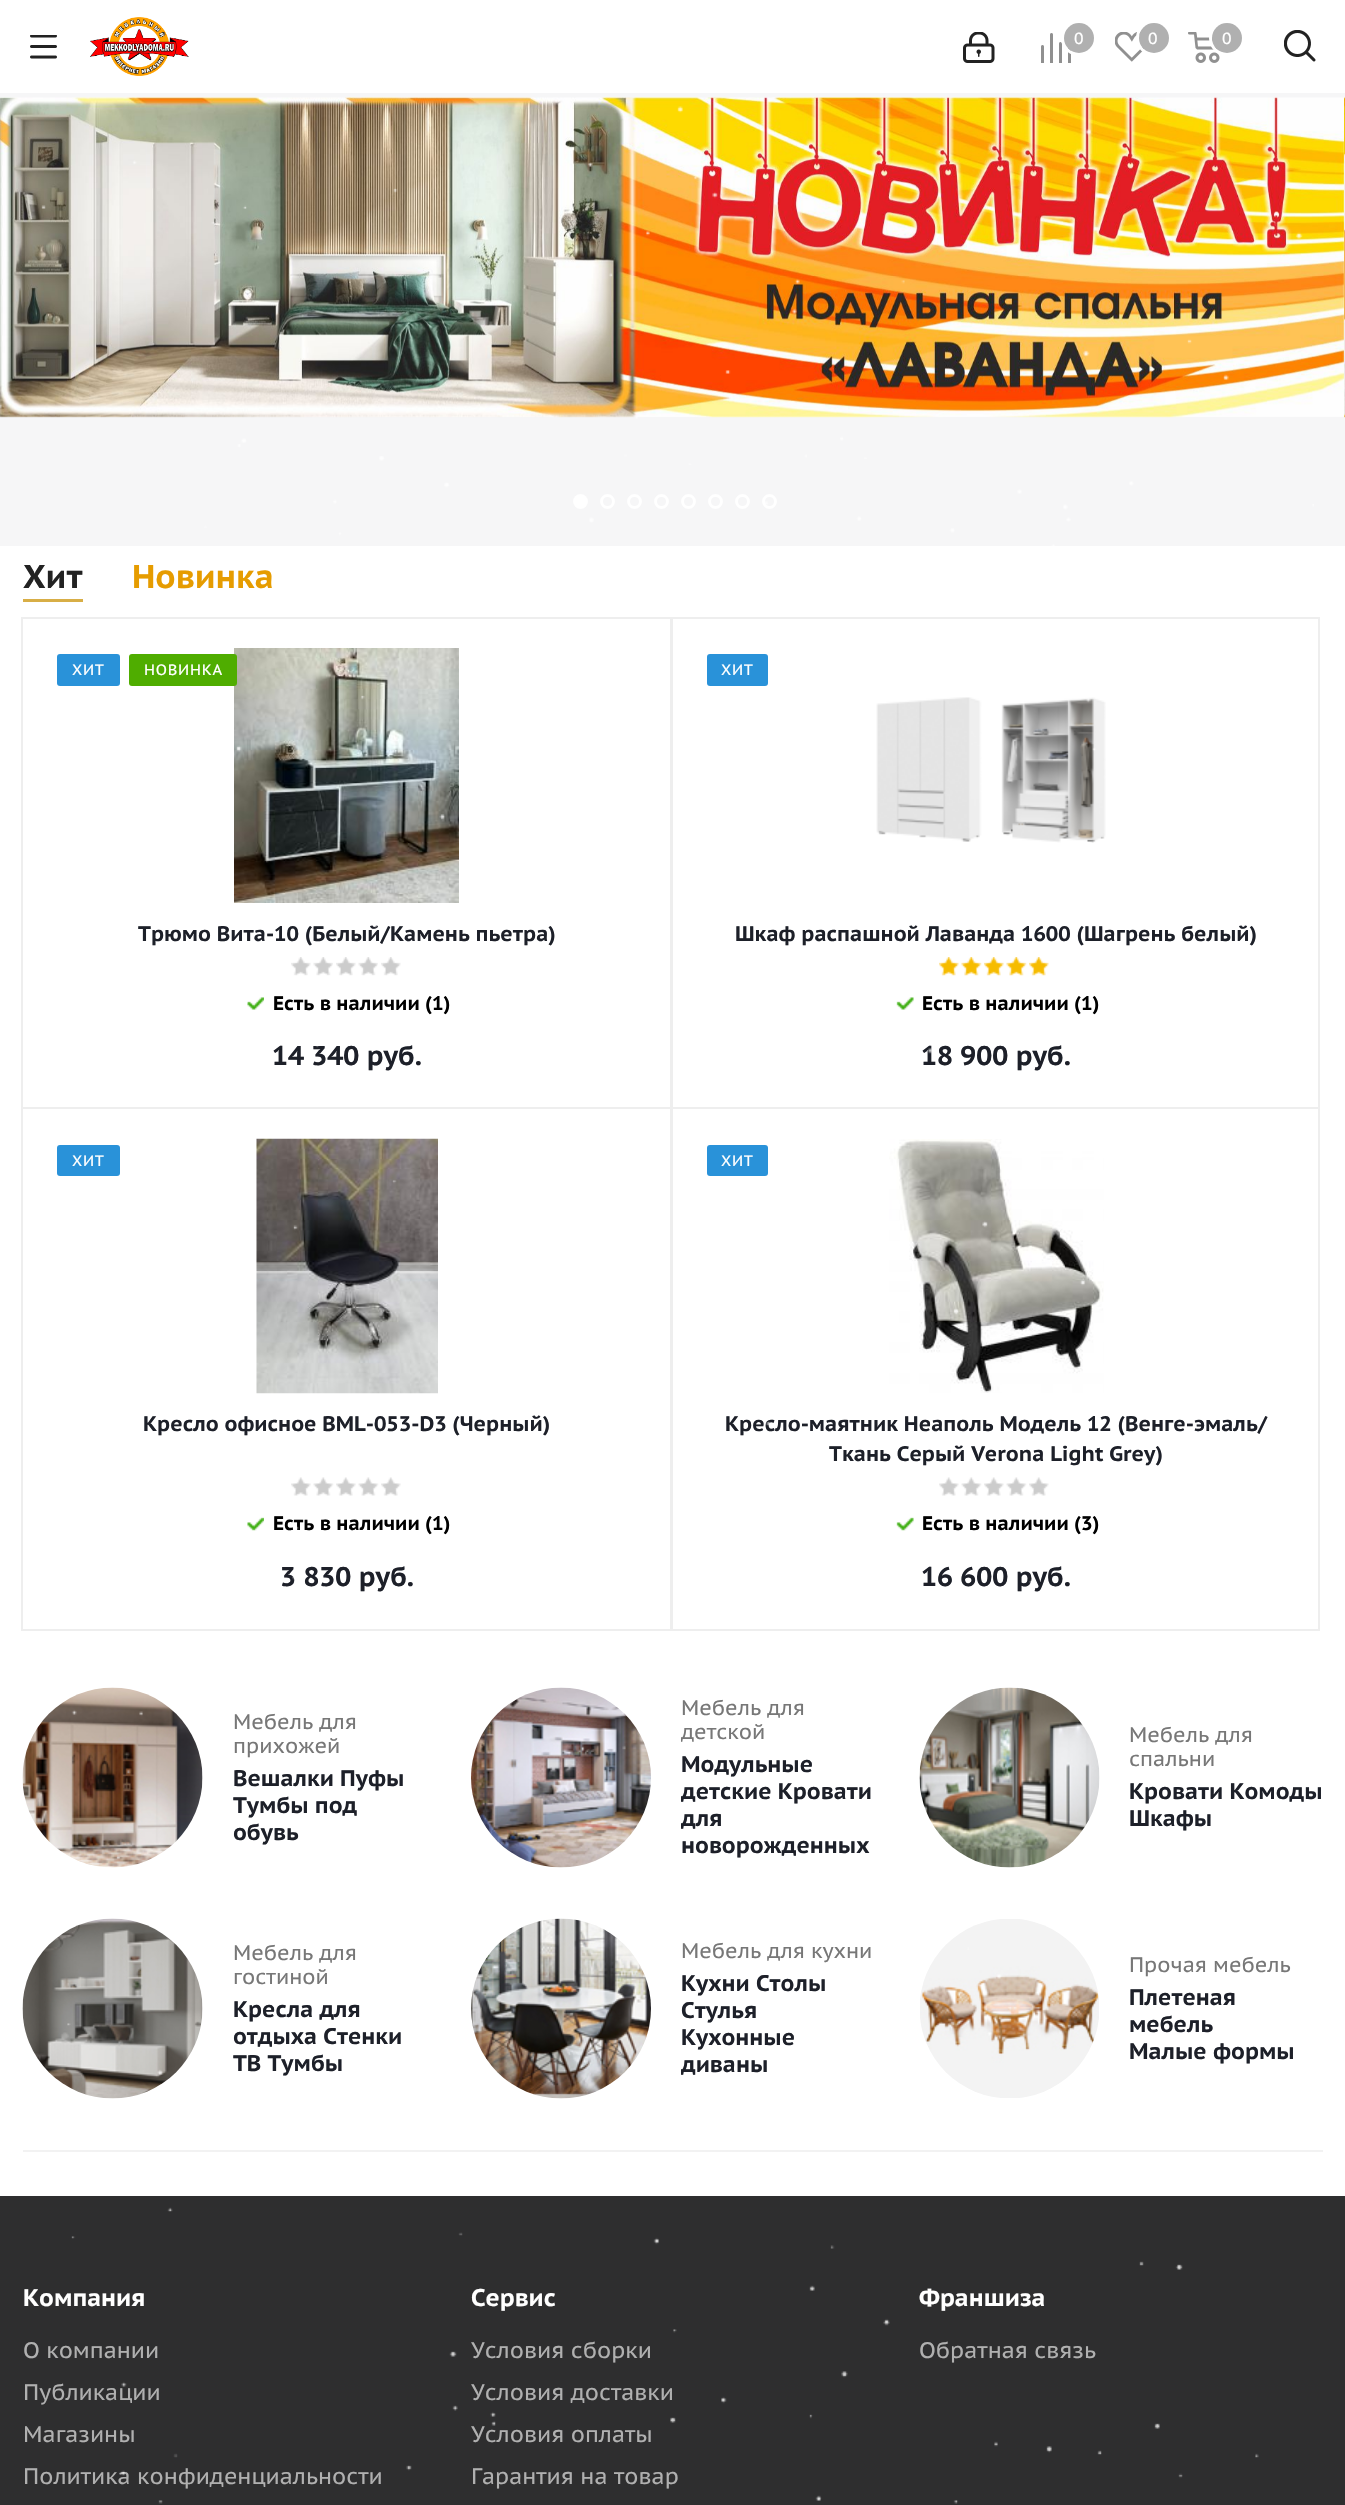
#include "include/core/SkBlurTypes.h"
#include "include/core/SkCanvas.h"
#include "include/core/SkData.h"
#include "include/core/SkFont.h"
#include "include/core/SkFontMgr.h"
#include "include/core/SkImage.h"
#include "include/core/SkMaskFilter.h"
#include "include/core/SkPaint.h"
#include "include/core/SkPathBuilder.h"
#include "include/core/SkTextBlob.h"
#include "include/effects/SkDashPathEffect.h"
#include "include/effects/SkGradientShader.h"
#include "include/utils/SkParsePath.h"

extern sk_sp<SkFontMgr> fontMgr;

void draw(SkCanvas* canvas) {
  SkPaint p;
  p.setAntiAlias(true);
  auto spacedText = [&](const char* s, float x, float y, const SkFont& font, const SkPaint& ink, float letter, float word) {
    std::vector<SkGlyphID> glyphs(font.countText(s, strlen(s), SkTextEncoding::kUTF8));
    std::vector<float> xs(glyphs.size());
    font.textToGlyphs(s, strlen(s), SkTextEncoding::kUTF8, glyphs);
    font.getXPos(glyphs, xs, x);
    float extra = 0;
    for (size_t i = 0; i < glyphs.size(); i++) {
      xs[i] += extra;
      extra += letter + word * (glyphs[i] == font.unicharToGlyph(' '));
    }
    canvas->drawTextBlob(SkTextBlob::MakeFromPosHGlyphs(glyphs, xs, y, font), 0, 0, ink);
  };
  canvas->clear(SkColorSetRGB(246, 246, 247));
  p.setColor(SK_ColorWHITE);
  canvas->drawRect(SkRect::MakeLTRB(0, 0, 1345, 93), p);
  canvas->drawImageRect(SkImages::DeferredFromEncodedData(SkData::MakeFromFileName("images/1.png")), SkRect::MakeLTRB(30, 35, 57, 59), SkSamplingOptions());
  canvas->drawImageRect(SkImages::DeferredFromEncodedData(SkData::MakeFromFileName("images/2.png")), SkRect::MakeLTRB(90, 17, 189, 76), SkSamplingOptions());
  canvas->drawImageRect(SkImages::DeferredFromEncodedData(SkData::MakeFromFileName("images/3.png")), SkRect::MakeLTRB(963, 32, 995, 63), SkSamplingOptions());
  canvas->drawImageRect(SkImages::DeferredFromEncodedData(SkData::MakeFromFileName("images/4.png")), SkRect::MakeLTRB(1041, 33, 1071, 63), SkSamplingOptions());
  p.setStyle(SkPaint::kStroke_Style);
  p.setStrokeWidth(3);
  canvas->drawCircle(1079, 38, 16.5f, p);
  p.setStyle(SkPaint::kFill_Style);
  p.setColor(SkColorSetRGB(176, 176, 176));
  canvas->drawCircle(1079, 38, 15, p);
  canvas->drawImageRect(SkImages::DeferredFromEncodedData(SkData::MakeFromFileName("images/5.png")), SkRect::MakeLTRB(1115, 32, 1145, 62), SkSamplingOptions());
  p.setStyle(SkPaint::kStroke_Style);
  p.setColor(SK_ColorWHITE);
  canvas->drawCircle(1154, 38, 16.5f, p);
  p.setStyle(SkPaint::kFill_Style);
  p.setColor(SkColorSetRGB(176, 176, 176));
  canvas->drawCircle(1154, 38, 15, p);
  canvas->drawImageRect(SkImages::DeferredFromEncodedData(SkData::MakeFromFileName("images/6.png")), SkRect::MakeLTRB(1188, 32, 1220, 63), SkSamplingOptions());
  p.setStyle(SkPaint::kStroke_Style);
  p.setColor(SK_ColorWHITE);
  canvas->drawCircle(1227, 38, 16.5f, p);
  p.setStyle(SkPaint::kFill_Style);
  p.setColor(SkColorSetRGB(176, 176, 176));
  canvas->drawCircle(1227, 38, 15, p);
  canvas->drawImageRect(SkImages::DeferredFromEncodedData(SkData::MakeFromFileName("images/7.png")), SkRect::MakeLTRB(1284, 30, 1316, 62), SkSamplingOptions());
  canvas->drawImageRect(SkImages::DeferredFromEncodedData(SkData::MakeFromFileName("images/8.png")), SkRect::MakeLTRB(0, 97, 1344, 418), SkSamplingOptions());
  canvas->drawImageRect(SkImages::DeferredFromEncodedData(SkData::MakeFromFileName("images/9.png")), SkRect::MakeLTRB(1344, 97, 1345, 418), SkSamplingOptions());
  p.setColor(SK_ColorWHITE);
  canvas->drawCircle(580.5f, 501.5f, 7.5f, p);
  p.setStyle(SkPaint::kStroke_Style);
  canvas->drawCircle(607.5f, 501.5f, 6, p);
  canvas->drawCircle(634.5f, 501.5f, 6, p);
  canvas->drawCircle(661.5f, 501.5f, 6, p);
  canvas->drawCircle(688.5f, 501.5f, 6, p);
  canvas->drawCircle(715.5f, 501.5f, 6, p);
  canvas->drawCircle(742.5f, 501.5f, 6, p);
  canvas->drawCircle(769.5f, 501.5f, 6, p);
  p.setStyle(SkPaint::kFill_Style);
  canvas->drawRect(SkRect::MakeLTRB(0, 546, 1345, 2196), p);
  p.setColor(SkColorSetRGB(216, 174, 70));
  canvas->drawRect(SkRect::MakeLTRB(23, 599, 83, 602), p);
  p.setStyle(SkPaint::kStroke_Style);
  p.setStrokeWidth(2);
  p.setColor(SkColorSetRGB(238, 238, 238));
  canvas->drawRect(SkRect::MakeLTRB(22, 618, 671, 1109), p);
  p.setStyle(SkPaint::kFill_Style);
  p.setColor(SkColorSetRGB(41, 146, 217));
  canvas->drawRoundRect(SkRect::MakeLTRB(57, 654, 120, 686), 3, 3, p);
  canvas->drawImageRect(SkImages::DeferredFromEncodedData(SkData::MakeFromFileName("images/10.png")), SkRect::MakeLTRB(234, 648, 459, 903), SkSamplingOptions());
  p.setColor(SkColorSetRGB(79, 173, 0));
  canvas->drawRoundRect(SkRect::MakeLTRB(129, 654, 237, 686), 3, 3, p);
  canvas->drawImageRect(SkImages::DeferredFromEncodedData(SkData::MakeFromFileName("images/11.png")), SkRect::MakeLTRB(291, 957, 311, 976), SkSamplingOptions());
  canvas->drawImageRect(SkImages::DeferredFromEncodedData(SkData::MakeFromFileName("images/12.png")), SkRect::MakeLTRB(313, 957, 333, 976), SkSamplingOptions());
  canvas->drawImageRect(SkImages::DeferredFromEncodedData(SkData::MakeFromFileName("images/11.png")), SkRect::MakeLTRB(336, 957, 356, 976), SkSamplingOptions());
  canvas->drawImageRect(SkImages::DeferredFromEncodedData(SkData::MakeFromFileName("images/13.png")), SkRect::MakeLTRB(358, 957, 378, 976), SkSamplingOptions());
  canvas->drawImageRect(SkImages::DeferredFromEncodedData(SkData::MakeFromFileName("images/11.png")), SkRect::MakeLTRB(381, 957, 401, 976), SkSamplingOptions());
  canvas->drawImageRect(SkImages::DeferredFromEncodedData(SkData::MakeFromFileName("images/14.png")), SkRect::MakeLTRB(247, 997, 264, 1010), SkSamplingOptions());
  p.setStyle(SkPaint::kStroke_Style);
  p.setColor(SkColorSetRGB(238, 238, 238));
  canvas->drawRect(SkRect::MakeLTRB(672, 618, 1319, 1109), p);
  p.setStyle(SkPaint::kFill_Style);
  p.setColor(SkColorSetRGB(41, 146, 217));
  canvas->drawRoundRect(SkRect::MakeLTRB(707, 654, 768, 686), 3, 3, p);
  canvas->drawImageRect(SkImages::DeferredFromEncodedData(SkData::MakeFromFileName("images/15.png")), SkRect::MakeLTRB(876, 697, 1106, 843), SkSamplingOptions());
  canvas->drawImageRect(SkImages::DeferredFromEncodedData(SkData::MakeFromFileName("images/16.png")), SkRect::MakeLTRB(939, 957, 959, 976), SkSamplingOptions());
  canvas->drawImageRect(SkImages::DeferredFromEncodedData(SkData::MakeFromFileName("images/17.png")), SkRect::MakeLTRB(961, 957, 982, 976), SkSamplingOptions());
  canvas->drawImageRect(SkImages::DeferredFromEncodedData(SkData::MakeFromFileName("images/16.png")), SkRect::MakeLTRB(984, 957, 1004, 976), SkSamplingOptions());
  canvas->drawImageRect(SkImages::DeferredFromEncodedData(SkData::MakeFromFileName("images/17.png")), SkRect::MakeLTRB(1006, 957, 1027, 976), SkSamplingOptions());
  canvas->drawImageRect(SkImages::DeferredFromEncodedData(SkData::MakeFromFileName("images/18.png")), SkRect::MakeLTRB(1029, 957, 1049, 976), SkSamplingOptions());
  canvas->drawImageRect(SkImages::DeferredFromEncodedData(SkData::MakeFromFileName("images/19.png")), SkRect::MakeLTRB(896, 997, 914, 1010), SkSamplingOptions());
  p.setColor(SK_ColorWHITE);
  canvas->drawRect(SkRect::MakeLTRB(23, 1109, 670, 1110), p);
  p.setStyle(SkPaint::kStroke_Style);
  p.setColor(SkColorSetRGB(238, 238, 238));
  canvas->drawRect(SkRect::MakeLTRB(22, 1108, 671, 1630), p);
  p.setStyle(SkPaint::kFill_Style);
  p.setColor(SkColorSetRGB(41, 146, 217));
  canvas->drawRoundRect(SkRect::MakeLTRB(57, 1145, 120, 1176), 3, 3, p);
  canvas->drawImageRect(SkImages::DeferredFromEncodedData(SkData::MakeFromFileName("images/20.png")), SkRect::MakeLTRB(256, 1138, 438, 1394), SkSamplingOptions());
  canvas->drawImageRect(SkImages::DeferredFromEncodedData(SkData::MakeFromFileName("images/21.png")), SkRect::MakeLTRB(291, 1477, 311, 1496), SkSamplingOptions());
  canvas->drawImageRect(SkImages::DeferredFromEncodedData(SkData::MakeFromFileName("images/22.png")), SkRect::MakeLTRB(313, 1477, 334, 1496), SkSamplingOptions());
  canvas->drawImageRect(SkImages::DeferredFromEncodedData(SkData::MakeFromFileName("images/21.png")), SkRect::MakeLTRB(336, 1477, 356, 1496), SkSamplingOptions());
  canvas->drawImageRect(SkImages::DeferredFromEncodedData(SkData::MakeFromFileName("images/23.png")), SkRect::MakeLTRB(358, 1477, 379, 1496), SkSamplingOptions());
  canvas->drawImageRect(SkImages::DeferredFromEncodedData(SkData::MakeFromFileName("images/21.png")), SkRect::MakeLTRB(381, 1477, 401, 1496), SkSamplingOptions());
  canvas->drawImageRect(SkImages::DeferredFromEncodedData(SkData::MakeFromFileName("images/24.png")), SkRect::MakeLTRB(247, 1517, 264, 1531), SkSamplingOptions());
  p.setColor(SK_ColorWHITE);
  canvas->drawRect(SkRect::MakeLTRB(673, 1109, 1318, 1110), p);
  p.setStyle(SkPaint::kStroke_Style);
  p.setColor(SkColorSetRGB(238, 238, 238));
  canvas->drawRect(SkRect::MakeLTRB(672, 1108, 1319, 1630), p);
  p.setStyle(SkPaint::kFill_Style);
  p.setColor(SkColorSetRGB(41, 146, 217));
  canvas->drawRoundRect(SkRect::MakeLTRB(707, 1145, 768, 1176), 3, 3, p);
  canvas->drawImageRect(SkImages::DeferredFromEncodedData(SkData::MakeFromFileName("images/25.png")), SkRect::MakeLTRB(889, 1139, 1104, 1393), SkSamplingOptions());
  canvas->drawImageRect(SkImages::DeferredFromEncodedData(SkData::MakeFromFileName("images/26.png")), SkRect::MakeLTRB(939, 1477, 959, 1496), SkSamplingOptions());
  canvas->drawImageRect(SkImages::DeferredFromEncodedData(SkData::MakeFromFileName("images/22.png")), SkRect::MakeLTRB(961, 1477, 982, 1496), SkSamplingOptions());
  canvas->drawImageRect(SkImages::DeferredFromEncodedData(SkData::MakeFromFileName("images/26.png")), SkRect::MakeLTRB(984, 1477, 1004, 1496), SkSamplingOptions());
  canvas->drawImageRect(SkImages::DeferredFromEncodedData(SkData::MakeFromFileName("images/22.png")), SkRect::MakeLTRB(1006, 1477, 1027, 1496), SkSamplingOptions());
  canvas->drawImageRect(SkImages::DeferredFromEncodedData(SkData::MakeFromFileName("images/27.png")), SkRect::MakeLTRB(1029, 1477, 1049, 1496), SkSamplingOptions());
  canvas->drawImageRect(SkImages::DeferredFromEncodedData(SkData::MakeFromFileName("images/28.png")), SkRect::MakeLTRB(896, 1517, 914, 1531), SkSamplingOptions());
  p.setColor(SkColorSetRGB(242, 242, 242));
  canvas->drawRect(SkRect::MakeLTRB(23, 2150, 1323, 2152), p);
  canvas->drawImageRect(SkImages::DeferredFromEncodedData(SkData::MakeFromFileName("images/29.png")), SkRect::MakeLTRB(22, 1687, 203, 1868), SkSamplingOptions());
  canvas->drawImageRect(SkImages::DeferredFromEncodedData(SkData::MakeFromFileName("images/30.png")), SkRect::MakeLTRB(471, 1687, 651, 1868), SkSamplingOptions());
  canvas->drawImageRect(SkImages::DeferredFromEncodedData(SkData::MakeFromFileName("images/31.png")), SkRect::MakeLTRB(919, 1687, 1100, 1868), SkSamplingOptions());
  canvas->drawImageRect(SkImages::DeferredFromEncodedData(SkData::MakeFromFileName("images/32.png")), SkRect::MakeLTRB(22, 1918, 203, 2099), SkSamplingOptions());
  canvas->drawImageRect(SkImages::DeferredFromEncodedData(SkData::MakeFromFileName("images/33.png")), SkRect::MakeLTRB(471, 1918, 651, 2099), SkSamplingOptions());
  canvas->drawImageRect(SkImages::DeferredFromEncodedData(SkData::MakeFromFileName("images/34.png")), SkRect::MakeLTRB(920, 1919, 1099, 2098), SkSamplingOptions());
  p.setColor(SkColorSetRGB(46, 46, 47));
  canvas->drawRect(SkRect::MakeLTRB(0, 2196, 1345, 2505), p);
  SkFont font1(fontMgr->matchFamilyStyle("PT Sans Caption", SkFontStyle::Normal()), 16);
  font1.setSubpixel(true);
  p.setColor(SK_ColorWHITE);
  canvas->drawString("0", 1074, 44, font1, p);
  canvas->drawString("0", 1148, 44, font1, p);
  canvas->drawString("0", 1222, 44, font1, p);
  SkFont font2(fontMgr->matchFamilyStyle("PT Sans Caption", SkFontStyle::Bold()), 33);
  font2.setSubpixel(true);
  p.setColor(SkColorSetRGB(34, 34, 34));
  canvas->drawString("Хит", 23, 588, font2, p);
  p.setColor(SkColorSetRGB(230, 156, 0));
  canvas->drawString("Новинка", 132, 588, font2, p);
  SkFont font3(fontMgr->matchFamilyStyle("PT Sans Caption", SkFontStyle::Normal()), 15);
  font3.setSubpixel(true);
  p.setColor(SK_ColorWHITE);
  spacedText("ХИТ", 72, 675, font3, p, 0.75f, 0);
  spacedText("НОВИНКА", 144, 675, font3, p, 0.75f, 0);
  SkFont font4(fontMgr->matchFamilyStyle("PT Sans Caption", SkFontStyle::Bold()), 21);
  font4.setSubpixel(true);
  p.setColor(SkColorSetRGB(29, 32, 41));
  canvas->drawString("Трюмо Вита-10 (Белый/Камень пьетра)", 138, 941, font4, p);
  SkFont font5(fontMgr->matchFamilyStyle("PT Sans Caption", SkFontStyle::Bold()), 19.5f);
  font5.setSubpixel(true);
  p.setColor(SK_ColorBLACK);
  canvas->drawString("Есть в наличии (1)", 273, 1010, font5, p);
  SkFont font6(fontMgr->matchFamilyStyle("PT Sans Caption", SkFontStyle::Bold()), 27);
  font6.setSubpixel(true);
  p.setColor(SkColorSetRGB(29, 32, 41));
  canvas->drawString("14 340 руб.", 272, 1065, font6, p);
  p.setColor(SK_ColorWHITE);
  spacedText("ХИТ", 721, 675, font3, p, 0.75f, 0);
  p.setColor(SkColorSetRGB(29, 32, 41));
  canvas->drawString("Шкаф распашной Лаванда 1600 (Шагрень белый)", 735, 941, font4, p);
  p.setColor(SK_ColorBLACK);
  canvas->drawString("Есть в наличии (1)", 922, 1010, font5, p);
  p.setColor(SkColorSetRGB(29, 32, 41));
  canvas->drawString("18 900 руб.", 921, 1065, font6, p);
  p.setColor(SK_ColorWHITE);
  spacedText("ХИТ", 72, 1166, font3, p, 0.75f, 0);
  p.setColor(SkColorSetRGB(29, 32, 41));
  canvas->drawString("Кресло офисное BML-053-D3 (Черный)", 143, 1431, font4, p);
  p.setColor(SK_ColorBLACK);
  canvas->drawString("Есть в наличии (1)", 273, 1530, font5, p);
  p.setColor(SkColorSetRGB(29, 32, 41));
  canvas->drawString("3 830 руб.", 280, 1586, font6, p);
  p.setColor(SK_ColorWHITE);
  spacedText("ХИТ", 721, 1166, font3, p, 0.75f, 0);
  p.setColor(SkColorSetRGB(29, 32, 41));
  canvas->drawString("Кресло-маятник Неаполь Модель 12 (Венге-эмаль/", 725, 1431, font4, p);
  canvas->drawString("Ткань Серый Verona Light Grey)", 829, 1461, font4, p);
  p.setColor(SK_ColorBLACK);
  canvas->drawString("Есть в наличии (3)", 922, 1530, font5, p);
  p.setColor(SkColorSetRGB(29, 32, 41));
  canvas->drawString("16 600 руб.", 921, 1586, font6, p);
  SkFont font7(fontMgr->matchFamilyStyle("PT Sans Caption", SkFontStyle::Normal()), 21);
  font7.setSubpixel(true);
  p.setColor(SkColorSetRGB(119, 119, 119));
  canvas->drawString("Мебель для", 233, 1729, font7, p);
  canvas->drawString("прихожей", 233, 1753, font7, p);
  SkFont font8(fontMgr->matchFamilyStyle("PT Sans Caption", SkFontStyle::Bold()), 22.5f);
  font8.setSubpixel(true);
  p.setColor(SkColorSetRGB(29, 32, 41));
  canvas->drawString("Вешалки Пуфы", 233, 1786, font8, p);
  canvas->drawString("Тумбы под", 233, 1813, font8, p);
  canvas->drawString("обувь", 233, 1840, font8, p);
  p.setColor(SkColorSetRGB(119, 119, 119));
  canvas->drawString("Мебель для", 681, 1715, font7, p);
  canvas->drawString("детской", 681, 1739, font7, p);
  p.setColor(SkColorSetRGB(29, 32, 41));
  canvas->drawString("Модульные", 681, 1772, font8, p);
  canvas->drawString("детские Кровати", 681, 1799, font8, p);
  canvas->drawString("для", 681, 1826, font8, p);
  canvas->drawString("новорожденных", 681, 1853, font8, p);
  p.setColor(SkColorSetRGB(119, 119, 119));
  canvas->drawString("Мебель для", 1129, 1742, font7, p);
  canvas->drawString("спальни", 1129, 1766, font7, p);
  p.setColor(SkColorSetRGB(29, 32, 41));
  canvas->drawString("Кровати Комоды", 1129, 1799, font8, p);
  canvas->drawString("Шкафы", 1129, 1826, font8, p);
  p.setColor(SkColorSetRGB(119, 119, 119));
  canvas->drawString("Мебель для", 233, 1960, font7, p);
  canvas->drawString("гостиной", 233, 1984, font7, p);
  p.setColor(SkColorSetRGB(29, 32, 41));
  canvas->drawString("Кресла для", 233, 2017, font8, p);
  canvas->drawString("отдыха Стенки", 233, 2044, font8, p);
  canvas->drawString("ТВ Тумбы", 233, 2071, font8, p);
  p.setColor(SkColorSetRGB(119, 119, 119));
  canvas->drawString("Мебель для кухни", 681, 1958, font7, p);
  p.setColor(SkColorSetRGB(29, 32, 41));
  canvas->drawString("Кухни Столы", 681, 1991, font8, p);
  canvas->drawString("Стулья", 681, 2018, font8, p);
  canvas->drawString("Кухонные", 681, 2045, font8, p);
  canvas->drawString("диваны", 681, 2072, font8, p);
  p.setColor(SkColorSetRGB(119, 119, 119));
  canvas->drawString("Прочая мебель", 1129, 1972, font7, p);
  p.setColor(SkColorSetRGB(29, 32, 41));
  canvas->drawString("Плетеная", 1129, 2005, font8, p);
  canvas->drawString("мебель", 1129, 2032, font8, p);
  canvas->drawString("Малые формы", 1129, 2059, font8, p);
  SkFont font9(fontMgr->matchFamilyStyle("PT Sans Caption", SkFontStyle::Bold()), 24);
  font9.setSubpixel(true);
  p.setColor(SK_ColorWHITE);
  canvas->drawString("Компания", 23, 2306, font9, p);
  SkFont font10(fontMgr->matchFamilyStyle("PT Sans Caption", SkFontStyle::Normal()), 22.5f);
  font10.setSubpixel(true);
  p.setColor(SkColorSetRGB(176, 176, 176));
  canvas->drawString("О компании", 23, 2358, font10, p);
  canvas->drawString("Публикации", 23, 2400, font10, p);
  canvas->drawString("Магазины", 23, 2442, font10, p);
  canvas->drawString("Политика конфиденциальности", 23, 2484, font10, p);
  p.setColor(SK_ColorWHITE);
  canvas->drawString("Сервис", 471, 2306, font9, p);
  p.setColor(SkColorSetRGB(176, 176, 176));
  canvas->drawString("Условия сборки", 471, 2358, font10, p);
  canvas->drawString("Условия доставки", 471, 2400, font10, p);
  canvas->drawString("Условия оплаты", 471, 2442, font10, p);
  canvas->drawString("Гарантия на товар", 471, 2484, font10, p);
  p.setColor(SK_ColorWHITE);
  canvas->drawString("Франшиза", 919, 2306, font9, p);
  p.setColor(SkColorSetRGB(176, 176, 176));
  canvas->drawString("Обратная связь", 919, 2358, font10, p);
  canvas->drawImageRect(SkImages::DeferredFromEncodedData(SkData::MakeFromFileName("images/35.png")), SkRect::MakeLTRB(0, 55, 1314, 2504), SkSamplingOptions());
}
